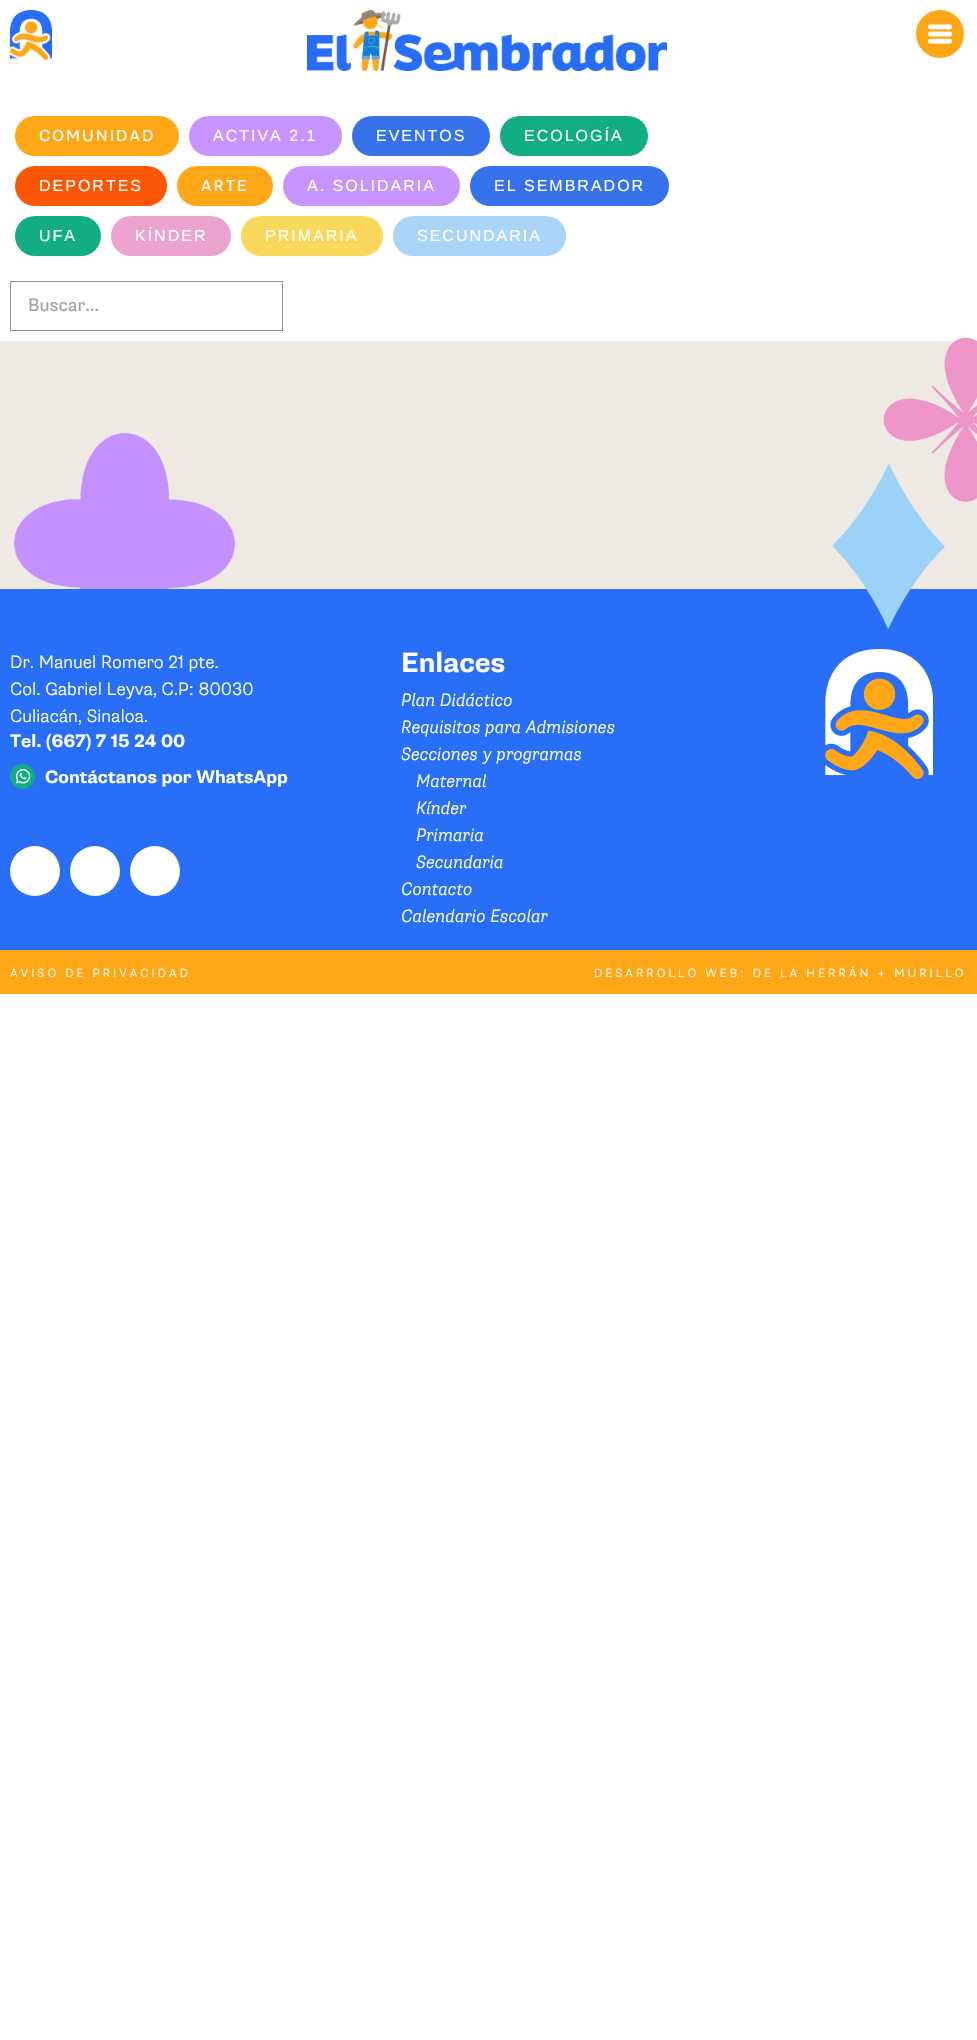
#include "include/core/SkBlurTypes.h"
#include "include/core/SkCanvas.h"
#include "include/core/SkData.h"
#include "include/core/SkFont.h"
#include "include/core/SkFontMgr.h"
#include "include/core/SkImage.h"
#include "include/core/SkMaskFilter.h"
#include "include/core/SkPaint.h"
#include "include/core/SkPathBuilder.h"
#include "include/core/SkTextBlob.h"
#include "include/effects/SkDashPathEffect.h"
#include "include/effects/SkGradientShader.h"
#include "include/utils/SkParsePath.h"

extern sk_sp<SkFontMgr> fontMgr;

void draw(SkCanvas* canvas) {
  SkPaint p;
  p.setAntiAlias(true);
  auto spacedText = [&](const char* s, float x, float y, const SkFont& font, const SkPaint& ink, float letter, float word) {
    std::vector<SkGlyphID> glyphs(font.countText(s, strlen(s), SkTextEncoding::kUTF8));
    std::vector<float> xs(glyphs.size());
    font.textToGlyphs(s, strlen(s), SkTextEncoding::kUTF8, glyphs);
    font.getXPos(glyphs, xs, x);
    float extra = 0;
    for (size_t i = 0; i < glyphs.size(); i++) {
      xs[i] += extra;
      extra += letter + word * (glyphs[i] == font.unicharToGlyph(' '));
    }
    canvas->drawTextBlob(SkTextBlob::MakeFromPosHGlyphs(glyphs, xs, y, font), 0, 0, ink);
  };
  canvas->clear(SK_ColorWHITE);
  canvas->drawImageRect(SkImages::DeferredFromEncodedData(SkData::MakeFromFileName("images/1.png")), SkRect::MakeLTRB(10, 10, 52, 60), SkSamplingOptions());
  canvas->drawImageRect(SkImages::DeferredFromEncodedData(SkData::MakeFromFileName("images/2.png")), SkRect::MakeLTRB(307, 10, 667, 71), SkSamplingOptions());
  p.setColor(SkColorSetRGB(255, 167, 23));
  canvas->drawCircle(940, 34, 24, p);
  canvas->drawImageRect(SkImages::DeferredFromEncodedData(SkData::MakeFromFileName("images/3.png")), SkRect::MakeLTRB(928, 24, 952, 44), SkSamplingOptions());
  canvas->drawRoundRect(SkRect::MakeLTRB(15, 116, 179, 156), 20, 20, p);
  p.setColor(SkColorSetRGB(200, 148, 255));
  canvas->drawRoundRect(SkRect::MakeLTRB(189, 116, 342, 156), 20, 20, p);
  p.setColor(SkColorSetRGB(54, 114, 236));
  canvas->drawRoundRect(SkRect::MakeLTRB(352, 116, 490, 156), 20, 20, p);
  p.setColor(SkColorSetRGB(18, 173, 132));
  canvas->drawRoundRect(SkRect::MakeLTRB(500, 116, 648, 156), 20, 20, p);
  p.setColor(SkColorSetRGB(253, 87, 6));
  canvas->drawRoundRect(SkRect::MakeLTRB(15, 166, 167, 206), 20, 20, p);
  p.setColor(SkColorSetRGB(255, 167, 23));
  canvas->drawRoundRect(SkRect::MakeLTRB(177, 166, 273, 206), 20, 20, p);
  p.setColor(SkColorSetRGB(200, 148, 255));
  canvas->drawRoundRect(SkRect::MakeLTRB(283, 166, 460, 206), 20, 20, p);
  p.setColor(SkColorSetRGB(54, 114, 236));
  canvas->drawRoundRect(SkRect::MakeLTRB(470, 166, 669, 206), 20, 20, p);
  p.setColor(SkColorSetRGB(18, 173, 132));
  canvas->drawRoundRect(SkRect::MakeLTRB(15, 216, 101, 256), 20, 20, p);
  p.setColor(SkColorSetRGB(235, 164, 208));
  canvas->drawRoundRect(SkRect::MakeLTRB(111, 216, 231, 256), 20, 20, p);
  p.setColor(SkColorSetRGB(250, 216, 92));
  canvas->drawRoundRect(SkRect::MakeLTRB(241, 216, 383, 256), 20, 20, p);
  p.setColor(SkColorSetRGB(170, 213, 248));
  canvas->drawRoundRect(SkRect::MakeLTRB(393, 216, 566, 256), 20, 20, p);
  p.setStyle(SkPaint::kStroke_Style);
  p.setStrokeWidth(1);
  p.setColor(SkColorSetRGB(147, 147, 147));
  canvas->drawRect(SkRect::MakeLTRB(10.5f, 281.5f, 282.5f, 330.5f), p);
  p.setStyle(SkPaint::kFill_Style);
  p.setColor(SkColorSetRGB(238, 234, 227));
  canvas->drawRect(SkRect::MakeLTRB(0, 341, 977, 589), p);
  canvas->drawImageRect(SkImages::DeferredFromEncodedData(SkData::MakeFromFileName("images/4.png")), SkRect::MakeLTRB(14, 433, 235, 589), SkSamplingOptions());
  canvas->drawImageRect(SkImages::DeferredFromEncodedData(SkData::MakeFromFileName("images/5.png")), SkRect::MakeLTRB(883, 337, 977, 502), SkSamplingOptions());
  p.setColor(SkColorSetRGB(40, 110, 247));
  canvas->drawRect(SkRect::MakeLTRB(0, 589, 977, 950), p);
  canvas->drawImageRect(SkImages::DeferredFromEncodedData(SkData::MakeFromFileName("images/6.png")), SkRect::MakeLTRB(832, 463, 945, 630), SkSamplingOptions());
  canvas->drawImageRect(SkImages::DeferredFromEncodedData(SkData::MakeFromFileName("images/7.png")), SkRect::MakeLTRB(10, 764, 35, 789), SkSamplingOptions());
  p.setColor(SK_ColorWHITE);
  canvas->drawCircle(35, 871, 25, p);
  canvas->drawCircle(95, 871, 25, p);
  canvas->drawCircle(155, 871, 25, p);
  canvas->drawImageRect(SkImages::DeferredFromEncodedData(SkData::MakeFromFileName("images/8.png")), SkRect::MakeLTRB(825, 649, 933, 779), SkSamplingOptions());
  p.setColor(SkColorSetRGB(255, 167, 23));
  canvas->drawRect(SkRect::MakeLTRB(0, 950, 977, 994), p);
  SkFont font1(fontMgr->matchFamilyStyle("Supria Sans", SkFontStyle::Normal()), 16);
  font1.setSubpixel(true);
  p.setColor(SK_ColorWHITE);
  spacedText("COMUNIDAD", 39, 141, font1, p, 2, 0);
  SkFont font2(fontMgr->matchFamilyStyle("Liberation Sans", SkFontStyle::Normal()), 16);
  font2.setSubpixel(true);
  spacedText("ACTIVA 2.1", 213, 141, font2, p, 2, 0);
  spacedText("EVENTOS", 376, 141, font2, p, 2, 0);
  spacedText("ECOLOGÍA", 524, 141, font2, p, 2, 0);
  spacedText("DEPORTES", 39, 191, font2, p, 2, 0);
  spacedText("ARTE", 201, 191, font1, p, 2, 0);
  spacedText("A. SOLIDARIA", 307, 191, font2, p, 2, 0);
  spacedText("EL SEMBRADOR", 494, 191, font2, p, 2, 0);
  spacedText("UFA", 39, 241, font2, p, 2, 0);
  spacedText("KÍNDER", 135, 241, font2, p, 2, 0);
  spacedText("PRIMARIA", 265, 241, font2, p, 2, 0);
  spacedText("SECUNDARIA", 417, 241, font2, p, 2, 0);
  SkFont font3(fontMgr->matchFamilyStyle("Supria Sans", SkFontStyle::Normal()), 18);
  font3.setSubpixel(true);
  p.setColor(SkColorSetRGB(163, 163, 163));
  canvas->drawString("Buscar...", 28, 311, font3, p);
  SkFont font4(fontMgr->matchFamilyStyle("Supria Sans", SkFontStyle(300, SkFontStyle::kNormal_Width, SkFontStyle::kUpright_Slant)), 18);
  font4.setSubpixel(true);
  p.setColor(SK_ColorWHITE);
  canvas->drawString("Dr. Manuel Romero 21 pte.", 10, 668, font4, p);
  canvas->drawString("Col. Gabriel Leyva, C.P: 80030", 10, 695, font4, p);
  canvas->drawString("Culiacán, Sinaloa.", 10, 722, font4, p);
  SkFont font5(fontMgr->matchFamilyStyle("Supria Sans", SkFontStyle::Bold()), 18);
  font5.setSubpixel(true);
  canvas->drawString("Tel. (667) 7 15 24 00", 10, 747, font5, p);
  canvas->drawString("Contáctanos por WhatsApp", 45, 783, font5, p);
  SkFont font6(fontMgr->matchFamilyStyle("Supria Sans", SkFontStyle::Bold()), 28);
  font6.setSubpixel(true);
  canvas->drawString("Enlaces", 401, 672, font6, p);
  SkFont font7(fontMgr->matchFamilyStyle("Supria Sans", SkFontStyle(300, SkFontStyle::kNormal_Width, SkFontStyle::kItalic_Slant)), 18);
  font7.setSubpixel(true);
  canvas->drawString("Plan Didáctico", 401, 706, font7, p);
  canvas->drawString("Requisitos para Admisiones", 401, 733, font7, p);
  canvas->drawString("Secciones y programas", 401, 760, font7, p);
  canvas->drawString("Maternal", 416, 787, font7, p);
  canvas->drawString("Kínder", 416, 814, font7, p);
  canvas->drawString("Primaria", 416, 841, font7, p);
  canvas->drawString("Secundaria", 416, 868, font7, p);
  canvas->drawString("Contacto", 401, 895, font7, p);
  canvas->drawString("Calendario Escolar", 401, 922, font7, p);
  SkFont font8(fontMgr->matchFamilyStyle("Supria Sans", SkFontStyle(300, SkFontStyle::kNormal_Width, SkFontStyle::kUpright_Slant)), 12);
  font8.setSubpixel(true);
  spacedText("AVISO DE PRIVACIDAD", 10, 977, font8, p, 3, 0);
  spacedText("DESARROLLO WEB: DE LA HERRÁN + MURILLO", 594, 977, font8, p, 3, 0);
}
